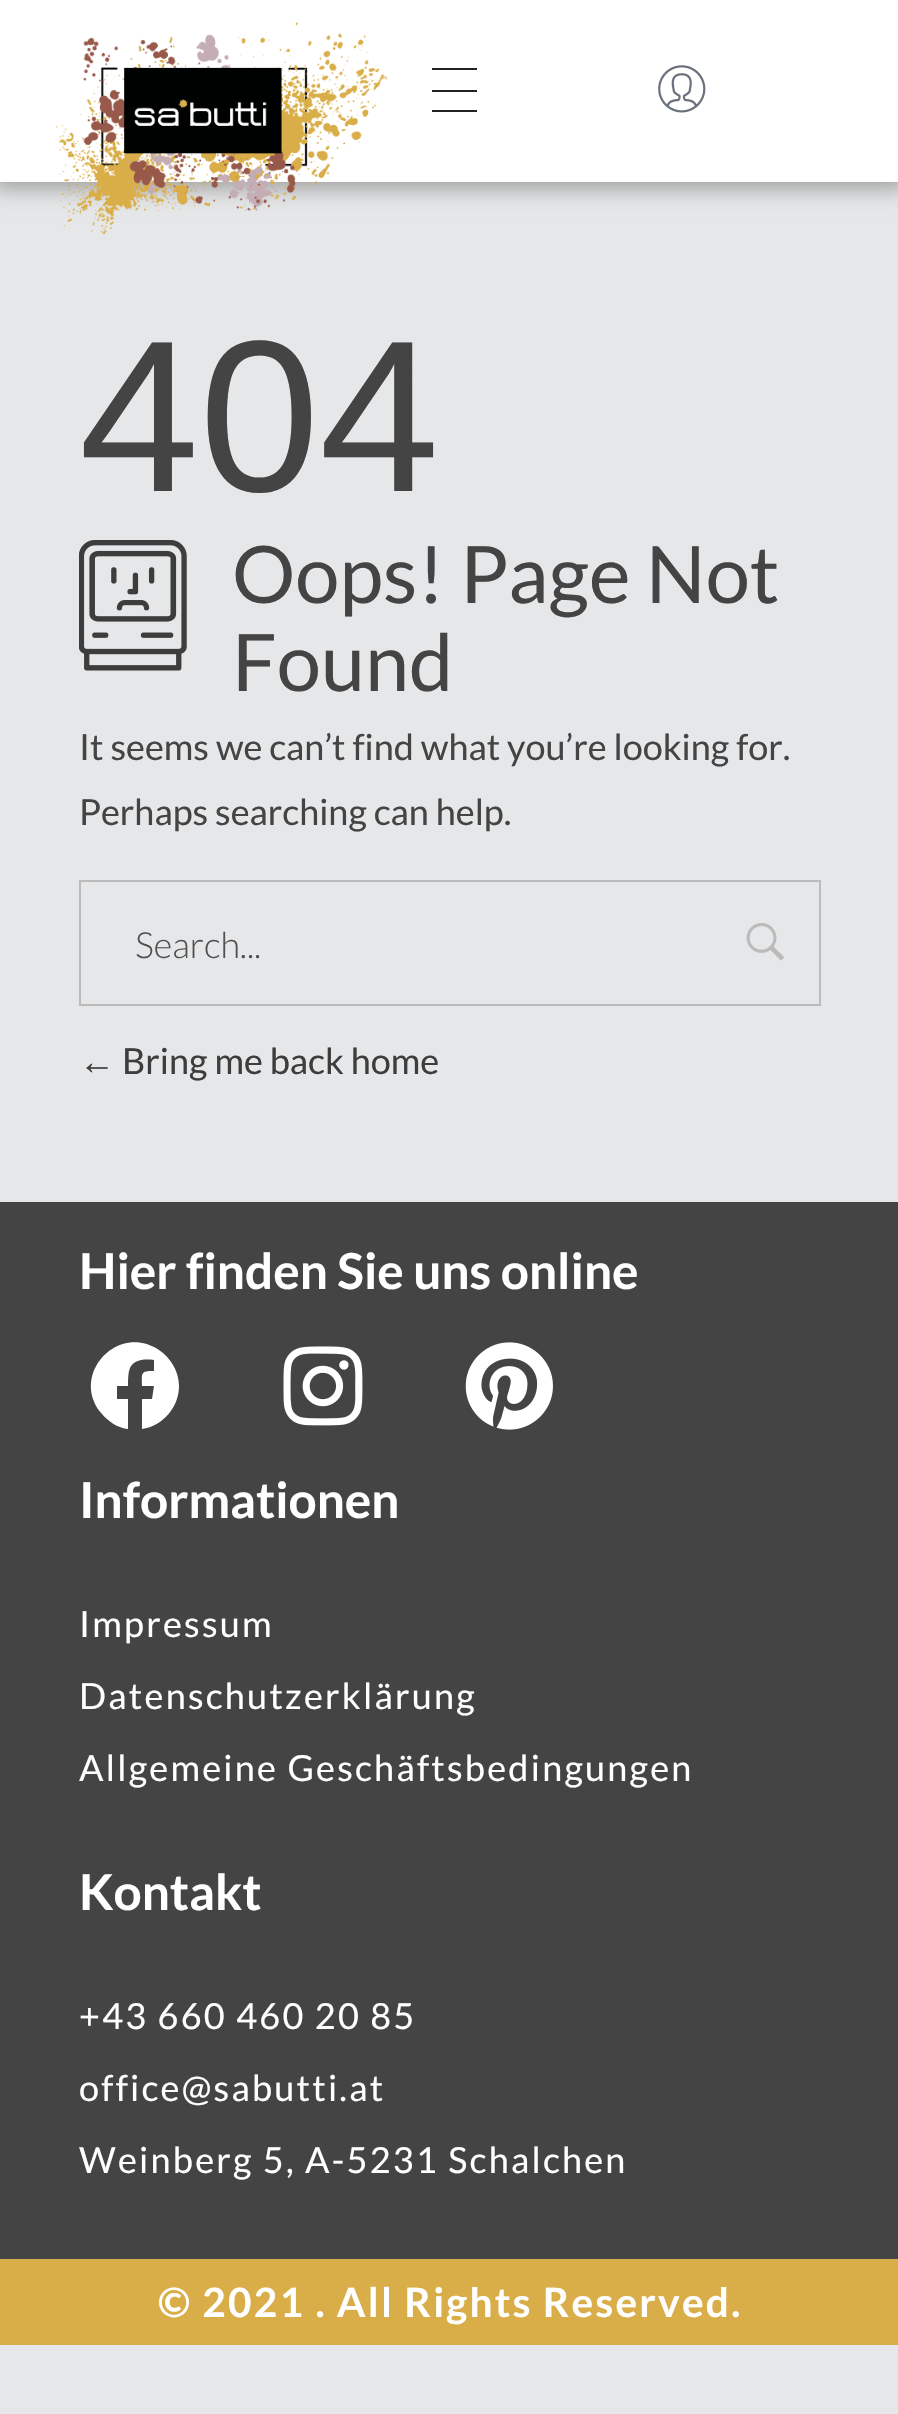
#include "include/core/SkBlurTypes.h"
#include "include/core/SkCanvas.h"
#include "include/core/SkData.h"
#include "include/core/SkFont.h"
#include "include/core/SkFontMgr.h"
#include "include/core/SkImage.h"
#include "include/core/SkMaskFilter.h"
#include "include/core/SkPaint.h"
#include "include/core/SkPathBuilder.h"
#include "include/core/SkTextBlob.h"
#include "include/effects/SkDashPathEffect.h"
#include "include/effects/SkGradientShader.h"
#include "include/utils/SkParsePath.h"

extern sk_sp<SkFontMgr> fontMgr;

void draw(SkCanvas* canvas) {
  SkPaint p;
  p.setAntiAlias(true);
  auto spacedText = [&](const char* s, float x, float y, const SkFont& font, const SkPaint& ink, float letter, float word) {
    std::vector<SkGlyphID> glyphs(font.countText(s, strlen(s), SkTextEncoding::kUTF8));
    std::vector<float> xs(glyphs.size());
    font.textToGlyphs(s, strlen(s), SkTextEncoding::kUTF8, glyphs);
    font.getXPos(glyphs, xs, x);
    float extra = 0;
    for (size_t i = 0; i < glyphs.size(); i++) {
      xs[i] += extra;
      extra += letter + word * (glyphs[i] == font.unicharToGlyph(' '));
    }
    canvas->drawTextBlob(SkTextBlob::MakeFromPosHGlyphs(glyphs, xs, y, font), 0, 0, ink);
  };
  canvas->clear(SkColorSetRGB(230, 231, 232));
  p.setColor(SkColorSetARGB(77, 0, 0, 0));
  p.setMaskFilter(SkMaskFilter::MakeBlur(kNormal_SkBlurStyle, 10));
  canvas->drawRect(SkRect::MakeLTRB(-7, -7, 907, 189), p);
  p.setMaskFilter(nullptr);
  p.setColor(SK_ColorWHITE);
  canvas->drawRect(SkRect::MakeLTRB(0, 0, 898, 182), p);
  canvas->drawImageRect(SkImages::DeferredFromEncodedData(SkData::MakeFromFileName("images/1.png")), SkRect::MakeLTRB(56, 22, 387, 234), SkSamplingOptions());
  p.setColor(SkColorSetRGB(34, 34, 34));
  canvas->drawRect(SkRect::MakeLTRB(432, 68, 477, 70), p);
  canvas->drawRect(SkRect::MakeLTRB(432, 90, 477, 92), p);
  canvas->drawRect(SkRect::MakeLTRB(432, 110, 477, 112), p);
  canvas->drawImageRect(SkImages::DeferredFromEncodedData(SkData::MakeFromFileName("images/2.png")), SkRect::MakeLTRB(658, 65, 706, 113), SkSamplingOptions());
  canvas->drawImageRect(SkImages::DeferredFromEncodedData(SkData::MakeFromFileName("images/3.png")), SkRect::MakeLTRB(79, 540, 187, 671), SkSamplingOptions());
  p.setStyle(SkPaint::kStroke_Style);
  p.setStrokeWidth(2);
  p.setColor(SkColorSetRGB(187, 187, 187));
  canvas->drawRect(SkRect::MakeLTRB(80, 881, 820, 1005), p);
  canvas->drawImageRect(SkImages::DeferredFromEncodedData(SkData::MakeFromFileName("images/4.png")), SkRect::MakeLTRB(746, 923, 785, 961), SkSamplingOptions());
  p.setStyle(SkPaint::kFill_Style);
  p.setColor(SkColorSetRGB(68, 68, 68));
  canvas->drawRect(SkRect::MakeLTRB(0, 1202, 898, 2259), p);
  p.setColor(SK_ColorWHITE);
  canvas->drawPath(SkPathBuilder().moveTo(179, 1386).cubicTo(179, 1407, 163, 1426, 142, 1429).lineTo(142, 1399).lineTo(152, 1399).lineTo(154, 1386).lineTo(142, 1386).cubicTo(142, 1373, 140, 1371, 154, 1371).lineTo(154, 1360).cubicTo(144, 1359, 132, 1359, 129, 1371).cubicTo(128, 1376, 128, 1381, 128, 1386).lineTo(117, 1386).lineTo(117, 1399).lineTo(128, 1399).lineTo(128, 1429).cubicTo(118, 1428, 109, 1422, 102, 1414).cubicTo(69, 1376, 117, 1322, 159, 1350).cubicTo(171, 1358, 179, 1372, 179, 1386).close().detach(), p);
  canvas->drawImageRect(SkImages::DeferredFromEncodedData(SkData::MakeFromFileName("images/5.png")), SkRect::MakeLTRB(283, 1346, 363, 1426), SkSamplingOptions());
  canvas->drawImageRect(SkImages::DeferredFromEncodedData(SkData::MakeFromFileName("images/6.png")), SkRect::MakeLTRB(465, 1342, 553, 1430), SkSamplingOptions());
  p.setColor(SkColorSetRGB(217, 174, 72));
  canvas->drawRect(SkRect::MakeLTRB(0, 2259, 898, 2345), p);
  SkFont font1(fontMgr->matchFamilyStyle("Liberation Sans", SkFontStyle::Normal()), 216);
  font1.setSubpixel(true);
  p.setColor(SkColorSetRGB(68, 68, 68));
  canvas->drawString("404", 79, 491, font1, p);
  SkFont font2(fontMgr->matchFamilyStyle("Lato", SkFontStyle::Normal()), 79.25f);
  font2.setSubpixel(true);
  canvas->drawString("Oops! Page Not", 232, 603, font2, p);
  canvas->drawString("Found", 232, 691, font2, p);
  SkFont font3(fontMgr->matchFamilyStyle("Lato", SkFontStyle::Normal()), 36);
  font3.setSubpixel(true);
  canvas->drawString("It seems we can’t find what you’re looking for.", 79, 760, font3, p);
  canvas->drawString("Perhaps searching can help.", 79, 825, font3, p);
  SkFont font4(fontMgr->matchFamilyStyle("Lato", SkFontStyle(300, SkFontStyle::kNormal_Width, SkFontStyle::kUpright_Slant)), 36);
  font4.setSubpixel(true);
  p.setColor(SkColorSetRGB(80, 80, 80));
  canvas->drawString("Search...", 135, 958, font4, p);
  SkFont font5(fontMgr->matchFamilyStyle("Liberation Sans", SkFontStyle::Normal()), 36);
  font5.setSubpixel(true);
  p.setColor(SkColorSetRGB(61, 61, 61));
  canvas->drawString("←", 79, 1074, font5, p);
  canvas->drawString("Bring me back home", 122, 1074, font3, p);
  SkFont font6(fontMgr->matchFamilyStyle("Lato", SkFontStyle::Bold()), 49.5f);
  font6.setSubpixel(true);
  p.setColor(SK_ColorWHITE);
  canvas->drawString("Hier finden Sie uns online", 79, 1289, font6, p);
  canvas->drawString("Informationen", 79, 1518, font6, p);
  spacedText("Impressum", 79, 1637, font3, p, 2.25f, 0);
  spacedText("Datenschutzerklärung", 79, 1709, font3, p, 2.25f, 0);
  spacedText("Allgemeine Geschäftsbedingungen", 79, 1781, font3, p, 2.25f, 0);
  canvas->drawString("Kontakt", 79, 1910, font6, p);
  spacedText("+43 660 460 20 85", 79, 2029, font3, p, 2.25f, 0);
  spacedText("office@sabutti.at", 79, 2101, font3, p, 2.25f, 0);
  spacedText("Weinberg 5, A-5231 Schalchen", 79, 2173, font3, p, 2.25f, 0);
  SkFont font7(fontMgr->matchFamilyStyle("Lato", SkFontStyle::Bold()), 40.5f);
  font7.setSubpixel(true);
  spacedText("© 2021 . All Rights Reserved.", 158, 2317, font7, p, 2.25f, 0);
}
